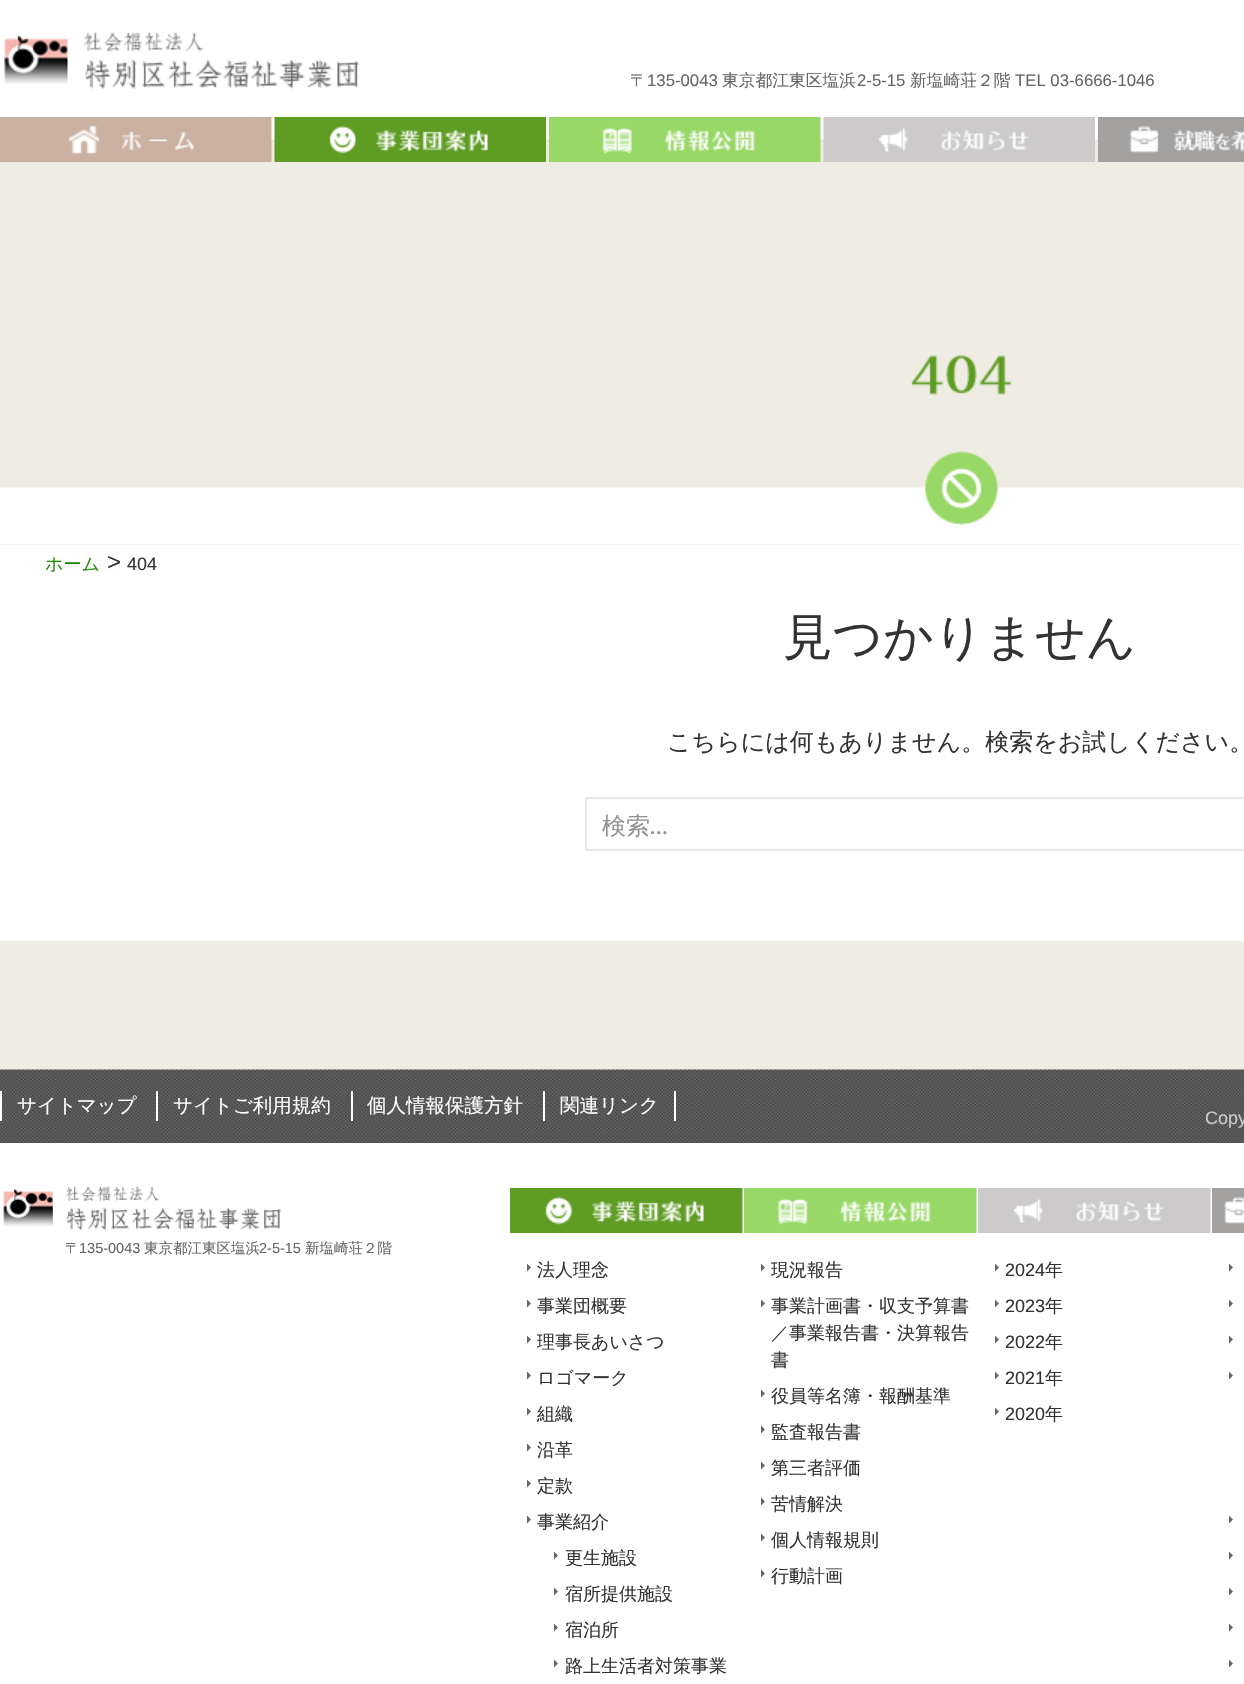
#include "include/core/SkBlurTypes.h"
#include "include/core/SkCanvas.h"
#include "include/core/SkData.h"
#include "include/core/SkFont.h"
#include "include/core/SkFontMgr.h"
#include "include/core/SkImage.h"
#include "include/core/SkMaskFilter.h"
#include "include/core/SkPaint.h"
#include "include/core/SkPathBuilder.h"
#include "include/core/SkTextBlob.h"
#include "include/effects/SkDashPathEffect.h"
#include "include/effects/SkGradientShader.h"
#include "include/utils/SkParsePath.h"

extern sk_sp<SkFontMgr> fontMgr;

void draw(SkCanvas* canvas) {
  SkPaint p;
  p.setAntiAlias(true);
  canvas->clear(SkColorSetRGB(239, 236, 227));
  p.setColor(SK_ColorWHITE);
  canvas->drawRect(SkRect::MakeLTRB(0, 0, 1244, 139), p);
  canvas->drawImageRect(SkImages::DeferredFromEncodedData(SkData::MakeFromFileName("images/1.png")), SkRect::MakeLTRB(0, 139, 1244, 545), SkSamplingOptions());
  canvas->drawImageRect(SkImages::DeferredFromEncodedData(SkData::MakeFromFileName("images/2.png")), SkRect::MakeLTRB(4, 31, 359, 89), SkSamplingOptions());
  canvas->drawImageRect(SkImages::DeferredFromEncodedData(SkData::MakeFromFileName("images/3.png")), SkRect::MakeLTRB(0, 117, 272, 162), SkSamplingOptions());
  canvas->drawImageRect(SkImages::DeferredFromEncodedData(SkData::MakeFromFileName("images/4.png")), SkRect::MakeLTRB(274, 117, 546, 162), SkSamplingOptions());
  canvas->drawImageRect(SkImages::DeferredFromEncodedData(SkData::MakeFromFileName("images/5.png")), SkRect::MakeLTRB(549, 117, 821, 162), SkSamplingOptions());
  canvas->drawImageRect(SkImages::DeferredFromEncodedData(SkData::MakeFromFileName("images/6.png")), SkRect::MakeLTRB(823, 117, 1095, 162), SkSamplingOptions());
  canvas->drawImageRect(SkImages::DeferredFromEncodedData(SkData::MakeFromFileName("images/7.png")), SkRect::MakeLTRB(1098, 117, 1244, 162), SkSamplingOptions());
  canvas->drawImageRect(SkImages::DeferredFromEncodedData(SkData::MakeFromFileName("images/8.png")), SkRect::MakeLTRB(0, 355, 1244, 545), SkSamplingOptions());
  canvas->drawRect(SkRect::MakeLTRB(0, 545, 1244, 941), p);
  p.setStyle(SkPaint::kStroke_Style);
  p.setStrokeWidth(2);
  p.setColor(SkColorSetRGB(230, 230, 230));
  canvas->drawRoundRect(SkRect::MakeLTRB(586, 798, 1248, 850), 2, 2, p);
  p.setStyle(SkPaint::kFill_Style);
  p.setColor(SK_ColorWHITE);
  canvas->drawRect(SkRect::MakeLTRB(0, 1143, 1244, 1684), p);
  canvas->drawImageRect(SkImages::DeferredFromEncodedData(SkData::MakeFromFileName("images/9.png")), SkRect::MakeLTRB(0, 1001, 1244, 1143), SkSamplingOptions());
  canvas->drawRect(SkRect::MakeLTRB(0, 1091, 2, 1121), p);
  canvas->drawRect(SkRect::MakeLTRB(156, 1091, 158, 1121), p);
  canvas->drawRect(SkRect::MakeLTRB(351, 1091, 353, 1121), p);
  canvas->drawRect(SkRect::MakeLTRB(674, 1091, 676, 1121), p);
  canvas->drawRect(SkRect::MakeLTRB(543, 1091, 545, 1121), p);
  canvas->drawImageRect(SkImages::DeferredFromEncodedData(SkData::MakeFromFileName("images/10.png")), SkRect::MakeLTRB(510, 1188, 743, 1233), SkSamplingOptions());
  canvas->save();
  canvas->clipRect(SkRect::MakeLTRB(527, 1257, 741, 1293));
  p.setColor(SkColorSetRGB(102, 102, 102));
  canvas->drawPath(SkPathBuilder().moveTo(526.5f, 1272).lineTo(526.5f, 1263).lineTo(531, 1267.5f).close().detach(), p);
  canvas->restore();
  canvas->save();
  canvas->clipRect(SkRect::MakeLTRB(527, 1293, 741, 1329));
  canvas->drawPath(SkPathBuilder().moveTo(526.5f, 1308).lineTo(526.5f, 1299).lineTo(531, 1303.5f).close().detach(), p);
  canvas->restore();
  canvas->save();
  canvas->clipRect(SkRect::MakeLTRB(527, 1329, 741, 1365));
  canvas->drawPath(SkPathBuilder().moveTo(526.5f, 1344).lineTo(526.5f, 1335).lineTo(531, 1339.5f).close().detach(), p);
  canvas->restore();
  canvas->save();
  canvas->clipRect(SkRect::MakeLTRB(527, 1365, 741, 1401));
  canvas->drawPath(SkPathBuilder().moveTo(526.5f, 1380).lineTo(526.5f, 1371).lineTo(531, 1375.5f).close().detach(), p);
  canvas->restore();
  canvas->save();
  canvas->clipRect(SkRect::MakeLTRB(527, 1401, 741, 1437));
  canvas->drawPath(SkPathBuilder().moveTo(526.5f, 1416).lineTo(526.5f, 1407).lineTo(531, 1411.5f).close().detach(), p);
  canvas->restore();
  canvas->save();
  canvas->clipRect(SkRect::MakeLTRB(527, 1437, 741, 1473));
  canvas->drawPath(SkPathBuilder().moveTo(526.5f, 1452).lineTo(526.5f, 1443).lineTo(531, 1447.5f).close().detach(), p);
  canvas->restore();
  canvas->save();
  canvas->clipRect(SkRect::MakeLTRB(527, 1473, 741, 1509));
  canvas->drawPath(SkPathBuilder().moveTo(526.5f, 1488).lineTo(526.5f, 1479).lineTo(531, 1483.5f).close().detach(), p);
  canvas->restore();
  canvas->save();
  canvas->clipRect(SkRect::MakeLTRB(527, 1509, 741, 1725));
  canvas->drawPath(SkPathBuilder().moveTo(526.5f, 1524).lineTo(526.5f, 1515).lineTo(531, 1519.5f).close().detach(), p);
  canvas->restore();
  canvas->save();
  canvas->clipRect(SkRect::MakeLTRB(554, 1545, 740, 1581));
  canvas->drawPath(SkPathBuilder().moveTo(553.5f, 1560).lineTo(553.5f, 1551).lineTo(558, 1555.5f).close().detach(), p);
  canvas->restore();
  canvas->save();
  canvas->clipRect(SkRect::MakeLTRB(554, 1581, 740, 1617));
  canvas->drawPath(SkPathBuilder().moveTo(553.5f, 1596).lineTo(553.5f, 1587).lineTo(558, 1591.5f).close().detach(), p);
  canvas->restore();
  canvas->save();
  canvas->clipRect(SkRect::MakeLTRB(554, 1617, 740, 1653));
  canvas->drawPath(SkPathBuilder().moveTo(553.5f, 1632).lineTo(553.5f, 1623).lineTo(558, 1627.5f).close().detach(), p);
  canvas->restore();
  canvas->save();
  canvas->clipRect(SkRect::MakeLTRB(554, 1653, 740, 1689));
  canvas->drawPath(SkPathBuilder().moveTo(553.5f, 1668).lineTo(553.5f, 1659).lineTo(558, 1663.5f).close().detach(), p);
  canvas->restore();
  canvas->drawImageRect(SkImages::DeferredFromEncodedData(SkData::MakeFromFileName("images/11.png")), SkRect::MakeLTRB(744, 1188, 977, 1233), SkSamplingOptions());
  canvas->save();
  canvas->clipRect(SkRect::MakeLTRB(761, 1257, 975, 1293));
  canvas->drawPath(SkPathBuilder().moveTo(760.5f, 1272).lineTo(760.5f, 1263).lineTo(765, 1267.5f).close().detach(), p);
  canvas->restore();
  canvas->save();
  canvas->clipRect(SkRect::MakeLTRB(761, 1293, 975, 1383));
  canvas->drawPath(SkPathBuilder().moveTo(760.5f, 1308).lineTo(760.5f, 1299).lineTo(765, 1303.5f).close().detach(), p);
  canvas->restore();
  canvas->save();
  canvas->clipRect(SkRect::MakeLTRB(761, 1383, 975, 1419));
  canvas->drawPath(SkPathBuilder().moveTo(760.5f, 1398).lineTo(760.5f, 1389).lineTo(765, 1393.5f).close().detach(), p);
  canvas->restore();
  canvas->save();
  canvas->clipRect(SkRect::MakeLTRB(761, 1419, 975, 1455));
  canvas->drawPath(SkPathBuilder().moveTo(760.5f, 1434).lineTo(760.5f, 1425).lineTo(765, 1429.5f).close().detach(), p);
  canvas->restore();
  canvas->save();
  canvas->clipRect(SkRect::MakeLTRB(761, 1455, 975, 1491));
  canvas->drawPath(SkPathBuilder().moveTo(760.5f, 1470).lineTo(760.5f, 1461).lineTo(765, 1465.5f).close().detach(), p);
  canvas->restore();
  canvas->save();
  canvas->clipRect(SkRect::MakeLTRB(761, 1491, 975, 1527));
  canvas->drawPath(SkPathBuilder().moveTo(760.5f, 1506).lineTo(760.5f, 1497).lineTo(765, 1501.5f).close().detach(), p);
  canvas->restore();
  canvas->save();
  canvas->clipRect(SkRect::MakeLTRB(761, 1527, 975, 1563));
  canvas->drawPath(SkPathBuilder().moveTo(760.5f, 1542).lineTo(760.5f, 1533).lineTo(765, 1537.5f).close().detach(), p);
  canvas->restore();
  canvas->save();
  canvas->clipRect(SkRect::MakeLTRB(761, 1563, 975, 1590));
  canvas->drawPath(SkPathBuilder().moveTo(760.5f, 1578).lineTo(760.5f, 1569).lineTo(765, 1573.5f).close().detach(), p);
  canvas->restore();
  canvas->drawImageRect(SkImages::DeferredFromEncodedData(SkData::MakeFromFileName("images/12.png")), SkRect::MakeLTRB(978, 1188, 1211, 1233), SkSamplingOptions());
  canvas->save();
  canvas->clipRect(SkRect::MakeLTRB(995, 1257, 1209, 1293));
  canvas->drawPath(SkPathBuilder().moveTo(994.5f, 1272).lineTo(994.5f, 1263).lineTo(999, 1267.5f).close().detach(), p);
  canvas->restore();
  canvas->save();
  canvas->clipRect(SkRect::MakeLTRB(995, 1293, 1209, 1329));
  canvas->drawPath(SkPathBuilder().moveTo(994.5f, 1308).lineTo(994.5f, 1299).lineTo(999, 1303.5f).close().detach(), p);
  canvas->restore();
  canvas->save();
  canvas->clipRect(SkRect::MakeLTRB(995, 1329, 1209, 1365));
  canvas->drawPath(SkPathBuilder().moveTo(994.5f, 1344).lineTo(994.5f, 1335).lineTo(999, 1339.5f).close().detach(), p);
  canvas->restore();
  canvas->save();
  canvas->clipRect(SkRect::MakeLTRB(995, 1365, 1209, 1401));
  canvas->drawPath(SkPathBuilder().moveTo(994.5f, 1380).lineTo(994.5f, 1371).lineTo(999, 1375.5f).close().detach(), p);
  canvas->restore();
  canvas->save();
  canvas->clipRect(SkRect::MakeLTRB(995, 1401, 1209, 1428));
  canvas->drawPath(SkPathBuilder().moveTo(994.5f, 1416).lineTo(994.5f, 1407).lineTo(999, 1411.5f).close().detach(), p);
  canvas->restore();
  canvas->drawImageRect(SkImages::DeferredFromEncodedData(SkData::MakeFromFileName("images/13.png")), SkRect::MakeLTRB(1212, 1188, 1244, 1233), SkSamplingOptions());
  canvas->save();
  canvas->clipRect(SkRect::MakeLTRB(1229, 1257, 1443, 1293));
  canvas->drawPath(SkPathBuilder().moveTo(1228.5f, 1272).lineTo(1228.5f, 1263).lineTo(1233, 1267.5f).close().detach(), p);
  canvas->restore();
  canvas->save();
  canvas->clipRect(SkRect::MakeLTRB(1229, 1293, 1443, 1329));
  canvas->drawPath(SkPathBuilder().moveTo(1228.5f, 1308).lineTo(1228.5f, 1299).lineTo(1233, 1303.5f).close().detach(), p);
  canvas->restore();
  canvas->save();
  canvas->clipRect(SkRect::MakeLTRB(1229, 1329, 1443, 1365));
  canvas->drawPath(SkPathBuilder().moveTo(1228.5f, 1344).lineTo(1228.5f, 1335).lineTo(1233, 1339.5f).close().detach(), p);
  canvas->restore();
  canvas->save();
  canvas->clipRect(SkRect::MakeLTRB(1229, 1365, 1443, 1509));
  canvas->drawPath(SkPathBuilder().moveTo(1228.5f, 1380).lineTo(1228.5f, 1371).lineTo(1233, 1375.5f).close().detach(), p);
  canvas->restore();
  canvas->save();
  canvas->clipRect(SkRect::MakeLTRB(1229, 1509, 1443, 1545));
  canvas->drawPath(SkPathBuilder().moveTo(1228.5f, 1524).lineTo(1228.5f, 1515).lineTo(1233, 1519.5f).close().detach(), p);
  canvas->restore();
  canvas->save();
  canvas->clipRect(SkRect::MakeLTRB(1229, 1545, 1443, 1581));
  canvas->drawPath(SkPathBuilder().moveTo(1228.5f, 1560).lineTo(1228.5f, 1551).lineTo(1233, 1555.5f).close().detach(), p);
  canvas->restore();
  canvas->save();
  canvas->clipRect(SkRect::MakeLTRB(1229, 1581, 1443, 1617));
  canvas->drawPath(SkPathBuilder().moveTo(1228.5f, 1596).lineTo(1228.5f, 1587).lineTo(1233, 1591.5f).close().detach(), p);
  canvas->restore();
  canvas->save();
  canvas->clipRect(SkRect::MakeLTRB(1229, 1617, 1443, 1653));
  canvas->drawPath(SkPathBuilder().moveTo(1228.5f, 1632).lineTo(1228.5f, 1623).lineTo(1233, 1627.5f).close().detach(), p);
  canvas->restore();
  canvas->save();
  canvas->clipRect(SkRect::MakeLTRB(1229, 1653, 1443, 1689));
  canvas->drawPath(SkPathBuilder().moveTo(1228.5f, 1668).lineTo(1228.5f, 1659).lineTo(1233, 1663.5f).close().detach(), p);
  canvas->restore();
  canvas->drawImageRect(SkImages::DeferredFromEncodedData(SkData::MakeFromFileName("images/14.png")), SkRect::MakeLTRB(3, 1186, 281, 1230), SkSamplingOptions());
  SkFont font1(fontMgr->matchFamilyStyle("WenQuanYi Zen Hei", SkFontStyle(500, SkFontStyle::kNormal_Width, SkFontStyle::kUpright_Slant)), 16.75f);
  font1.setSubpixel(true);
  canvas->drawString("〒", 630, 86, font1, p);
  SkFont font2(fontMgr->matchFamilyStyle("Liberation Sans", SkFontStyle::Normal()), 16.75f);
  font2.setSubpixel(true);
  canvas->drawString("135-0043", 647, 86, font2, p);
  canvas->drawString("東京都江東区塩浜", 722, 86, font1, p);
  canvas->drawString("2-5-15", 857, 86, font2, p);
  canvas->drawString("新塩崎荘２階", 910, 86, font1, p);
  canvas->drawString("TEL 03-6666-1046", 1015, 86, font2, p);
  SkFont font3(fontMgr->matchFamilyStyle("WenQuanYi Zen Hei", SkFontStyle(500, SkFontStyle::kNormal_Width, SkFontStyle::kUpright_Slant)), 18);
  font3.setSubpixel(true);
  p.setColor(SkColorSetRGB(36, 137, 13));
  canvas->drawString("ホーム", 45, 570, font3, p);
  SkFont font4(fontMgr->matchFamilyStyle("Liberation Sans", SkFontStyle::Normal()), 24);
  font4.setSubpixel(true);
  p.setColor(SkColorSetRGB(51, 51, 51));
  canvas->drawString(">", 107, 570, font4, p);
  SkFont font5(fontMgr->matchFamilyStyle("Liberation Sans", SkFontStyle::Normal()), 18);
  font5.setSubpixel(true);
  canvas->drawString("404", 127, 570, font5, p);
  SkFont font6(fontMgr->matchFamilyStyle("WenQuanYi Zen Hei", SkFontStyle(500, SkFontStyle::kNormal_Width, SkFontStyle::kUpright_Slant)), 49.5f);
  font6.setSubpixel(true);
  canvas->drawString("見つかりません", 783, 654, font6, p);
  SkFont font7(fontMgr->matchFamilyStyle("WenQuanYi Zen Hei", SkFontStyle(500, SkFontStyle::kNormal_Width, SkFontStyle::kUpright_Slant)), 24);
  font7.setSubpixel(true);
  canvas->drawString("こちらには何もありません。検索をお試しください。", 667, 750, font7, p);
  p.setColor(SkColorSetRGB(147, 147, 147));
  canvas->drawString("検索", 602, 834, font7, p);
  SkFont font8(fontMgr->matchFamilyStyle("Lato", SkFontStyle::Normal()), 24);
  font8.setSubpixel(true);
  canvas->drawString("…", 650, 834, font8, p);
  SkFont font9(fontMgr->matchFamilyStyle("WenQuanYi Zen Hei", SkFontStyle(500, SkFontStyle::kNormal_Width, SkFontStyle::kUpright_Slant)), 19.5f);
  font9.setSubpixel(true);
  p.setColor(SK_ColorWHITE);
  canvas->drawString("サイトマップ", 17, 1112, font9, p);
  canvas->drawString("サイトご利用規約", 173, 1112, font9, p);
  canvas->drawString("個人情報保護方針", 367, 1112, font9, p);
  canvas->drawString("関連リンク", 560, 1112, font9, p);
  p.setColor(SkColorSetRGB(51, 51, 51));
  canvas->drawString("法人理念", 537, 1276, font3, p);
  canvas->drawString("事業団概要", 537, 1312, font3, p);
  canvas->drawString("理事長あいさつ", 537, 1348, font3, p);
  canvas->drawString("ロゴマーク", 537, 1384, font3, p);
  canvas->drawString("組織", 537, 1420, font3, p);
  canvas->drawString("沿革", 537, 1456, font3, p);
  canvas->drawString("定款", 537, 1492, font3, p);
  canvas->drawString("事業紹介", 537, 1528, font3, p);
  canvas->drawString("更生施設", 565, 1564, font3, p);
  canvas->drawString("宿所提供施設", 565, 1600, font3, p);
  canvas->drawString("宿泊所", 565, 1636, font3, p);
  canvas->drawString("路上生活者対策事業", 565, 1672, font3, p);
  canvas->drawString("現況報告", 771, 1276, font3, p);
  canvas->drawString("事業計画書・収支予算書", 771, 1312, font3, p);
  canvas->drawString("／事業報告書・決算報告", 771, 1339, font3, p);
  canvas->drawString("書", 771, 1366, font3, p);
  canvas->drawString("役員等名簿・報酬基準", 771, 1402, font3, p);
  canvas->drawString("監査報告書", 771, 1438, font3, p);
  canvas->drawString("第三者評価", 771, 1474, font3, p);
  canvas->drawString("苦情解決", 771, 1510, font3, p);
  canvas->drawString("個人情報規則", 771, 1546, font3, p);
  canvas->drawString("行動計画", 771, 1582, font3, p);
  canvas->drawString("2024", 1005, 1276, font5, p);
  canvas->drawString("年", 1045, 1276, font3, p);
  canvas->drawString("2023", 1005, 1312, font5, p);
  canvas->drawString("年", 1045, 1312, font3, p);
  canvas->drawString("2022", 1005, 1348, font5, p);
  canvas->drawString("年", 1045, 1348, font3, p);
  canvas->drawString("2021", 1005, 1384, font5, p);
  canvas->drawString("年", 1045, 1384, font3, p);
  canvas->drawString("2020", 1005, 1420, font5, p);
  canvas->drawString("年", 1045, 1420, font3, p);
  p.setColor(SkColorSetRGB(205, 204, 204));
  canvas->drawString("Copy", 1205, 1124, font5, p);
  SkFont font10(fontMgr->matchFamilyStyle("WenQuanYi Zen Hei", SkFontStyle(500, SkFontStyle::kNormal_Width, SkFontStyle::kUpright_Slant)), 14.5f);
  font10.setSubpixel(true);
  p.setColor(SkColorSetRGB(102, 102, 102));
  canvas->drawString("〒", 65, 1253, font10, p);
  SkFont font11(fontMgr->matchFamilyStyle("Liberation Sans", SkFontStyle::Normal()), 14.5f);
  font11.setSubpixel(true);
  canvas->drawString("135-0043", 79, 1253, font11, p);
  canvas->drawString("東京都江東区塩浜", 144, 1253, font10, p);
  canvas->drawString("2-5-15", 259, 1253, font11, p);
  canvas->drawString("新塩崎荘２階", 305, 1253, font10, p);
}
